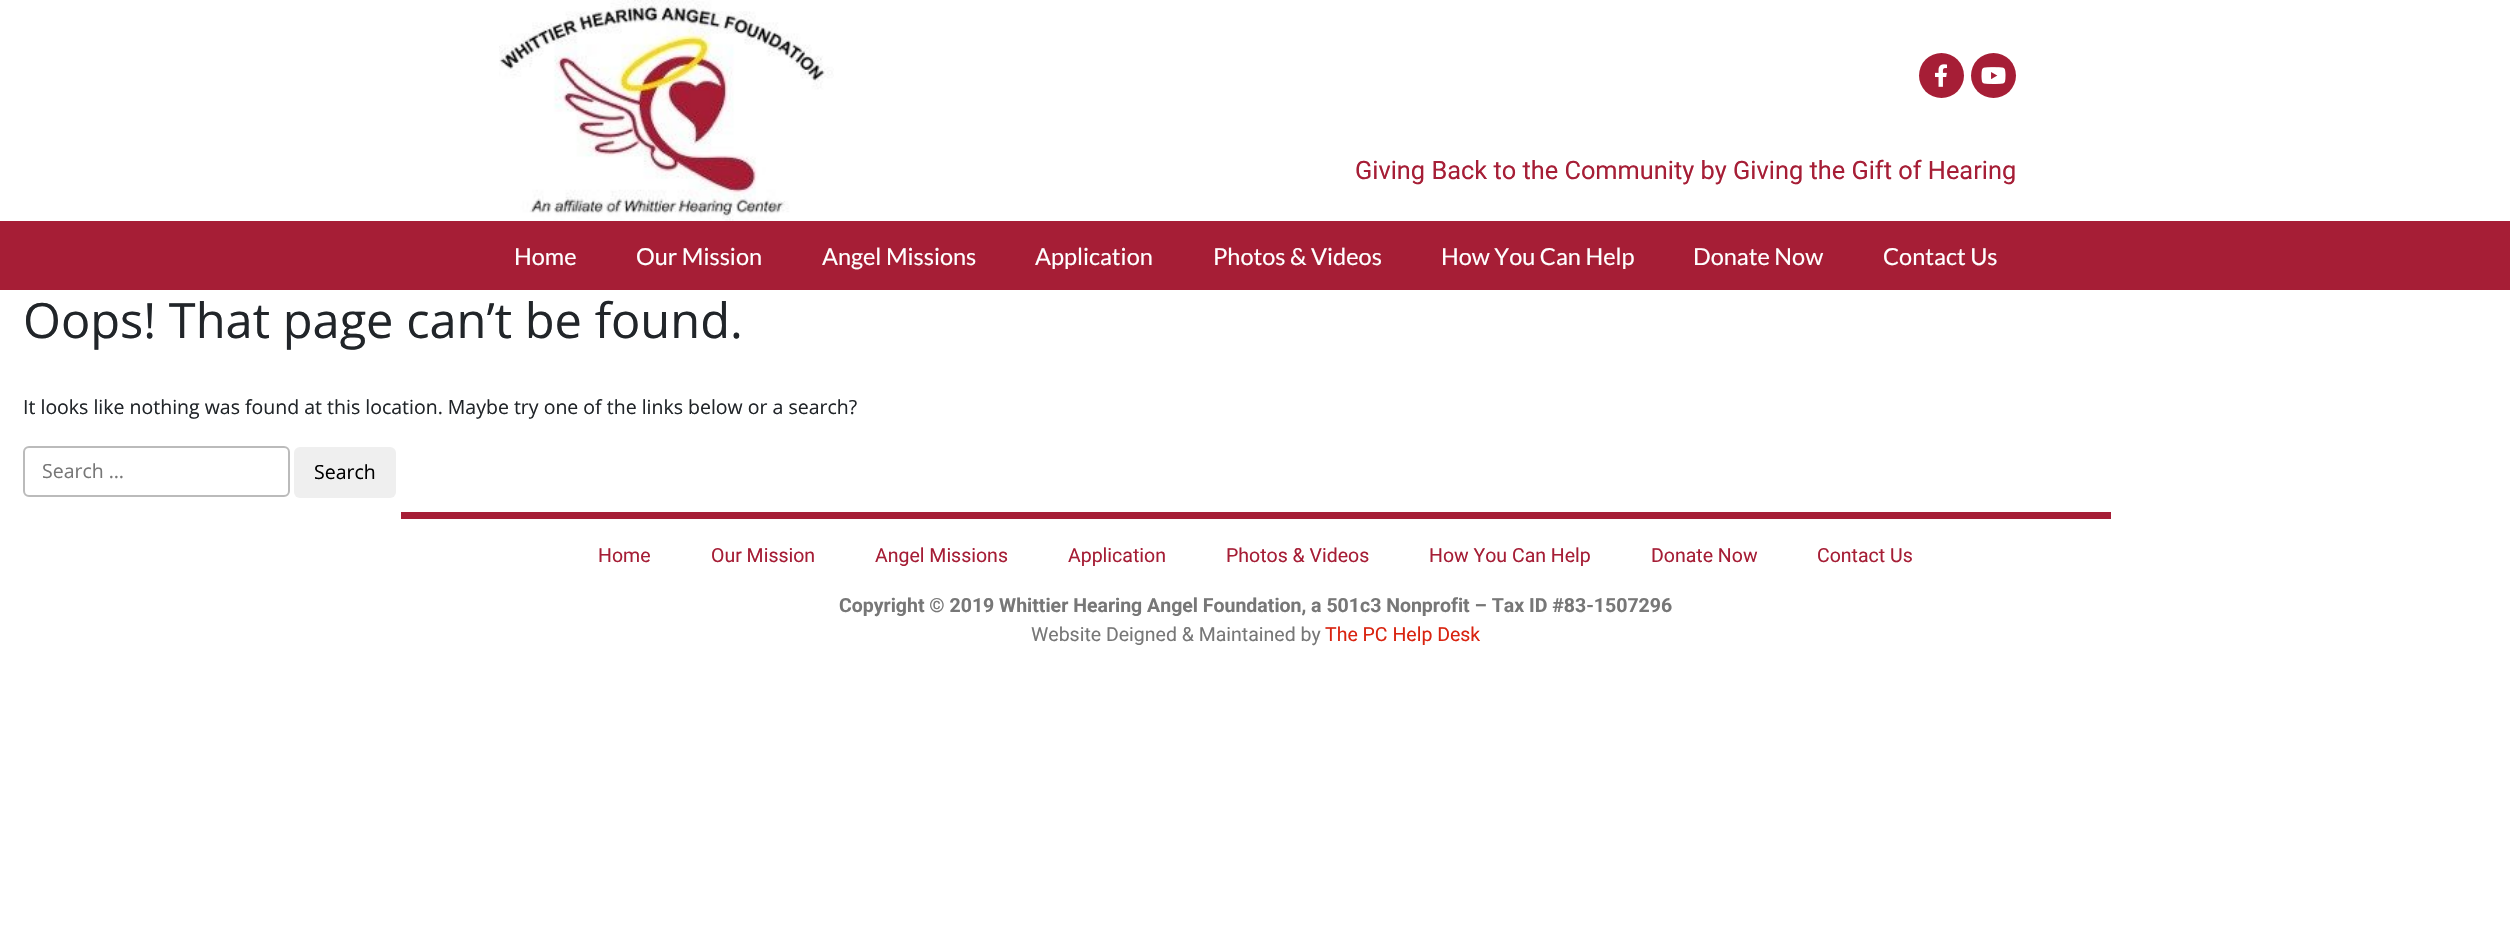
#include "include/core/SkBlurTypes.h"
#include "include/core/SkCanvas.h"
#include "include/core/SkData.h"
#include "include/core/SkFont.h"
#include "include/core/SkFontMgr.h"
#include "include/core/SkImage.h"
#include "include/core/SkMaskFilter.h"
#include "include/core/SkPaint.h"
#include "include/core/SkPathBuilder.h"
#include "include/core/SkTextBlob.h"
#include "include/effects/SkDashPathEffect.h"
#include "include/effects/SkGradientShader.h"
#include "include/utils/SkParsePath.h"

extern sk_sp<SkFontMgr> fontMgr;

void draw(SkCanvas* canvas) {
  SkPaint p;
  p.setAntiAlias(true);
  canvas->clear(SK_ColorWHITE);
  canvas->drawImageRect(SkImages::DeferredFromEncodedData(SkData::MakeFromFileName("images/1.png")), SkRect::MakeLTRB(499, 0, 834, 221), SkSamplingOptions());
  p.setColor(SkColorSetRGB(166, 30, 54));
  canvas->drawCircle(1941.5f, 75.5f, 22.5f, p);
  canvas->drawImageRect(SkImages::DeferredFromEncodedData(SkData::MakeFromFileName("images/2.png")), SkRect::MakeLTRB(1935, 64, 1947, 87), SkSamplingOptions());
  canvas->drawCircle(1993.5f, 75.5f, 22.5f, p);
  canvas->drawImageRect(SkImages::DeferredFromEncodedData(SkData::MakeFromFileName("images/3.png")), SkRect::MakeLTRB(1981, 67, 2006, 84), SkSamplingOptions());
  canvas->drawRect(SkRect::MakeLTRB(0, 221, 2510, 290), p);
  p.setStyle(SkPaint::kStroke_Style);
  p.setStrokeWidth(2);
  p.setColor(SkColorSetRGB(187, 187, 187));
  canvas->drawRoundRect(SkRect::MakeLTRB(24, 447, 289, 496), 5, 5, p);
  p.setStyle(SkPaint::kFill_Style);
  p.setColor(SkColorSetRGB(239, 239, 239));
  canvas->drawRoundRect(SkRect::MakeLTRB(294, 447, 396, 498), 6, 6, p);
  p.setColor(SkColorSetRGB(166, 30, 54));
  canvas->drawRect(SkRect::MakeLTRB(401, 512, 2111, 519), p);
  SkFont font1(fontMgr->matchFamilyStyle("Roboto", SkFontStyle::Normal()), 25.35f);
  font1.setSubpixel(true);
  canvas->drawString("Giving Back to the Community by Giving the Gift of Hearing", 1355, 179, font1, p);
  SkFont font2(fontMgr->matchFamilyStyle("Lato", SkFontStyle::Normal()), 23.5f);
  font2.setSubpixel(true);
  p.setColor(SK_ColorWHITE);
  canvas->drawString("Home", 514, 265, font2, p);
  canvas->drawString("Our Mission", 636, 265, font2, p);
  canvas->drawString("Angel Missions", 822, 265, font2, p);
  canvas->drawString("Application", 1035, 265, font2, p);
  canvas->drawString("Photos & Videos", 1213, 265, font2, p);
  canvas->drawString("How You Can Help", 1441, 265, font2, p);
  canvas->drawString("Donate Now", 1693, 265, font2, p);
  canvas->drawString("Contact Us", 1883, 265, font2, p);
  SkFont font3(fontMgr->matchFamilyStyle("Open Sans", SkFontStyle::Normal()), 48.75f);
  font3.setSubpixel(true);
  p.setColor(SkColorSetRGB(33, 37, 41));
  canvas->drawString("Oops! That page can’t be found.", 23, 338, font3, p);
  SkFont font4(fontMgr->matchFamilyStyle("Open Sans", SkFontStyle::Normal()), 19.5f);
  font4.setSubpixel(true);
  canvas->drawString("It looks like nothing was found at this location. Maybe try one of the links below or a search?", 23, 414, font4, p);
  p.setColor(SkColorSetRGB(119, 119, 119));
  canvas->drawString("Search …", 42, 478, font4, p);
  p.setColor(SK_ColorBLACK);
  canvas->drawString("Search", 314, 479, font4, p);
  SkFont font5(fontMgr->matchFamilyStyle("Roboto", SkFontStyle::Normal()), 19.5f);
  font5.setSubpixel(true);
  p.setColor(SkColorSetRGB(166, 30, 54));
  canvas->drawString("Home", 598, 562, font5, p);
  canvas->drawString("Our Mission", 711, 562, font5, p);
  canvas->drawString("Angel Missions", 875, 562, font5, p);
  canvas->drawString("Application", 1068, 562, font5, p);
  canvas->drawString("Photos & Videos", 1226, 562, font5, p);
  canvas->drawString("How You Can Help", 1429, 562, font5, p);
  canvas->drawString("Donate Now", 1651, 562, font5, p);
  canvas->drawString("Contact Us", 1817, 562, font5, p);
  SkFont font6(fontMgr->matchFamilyStyle("Roboto", SkFontStyle::Bold()), 19.5f);
  font6.setSubpixel(true);
  p.setColor(SkColorSetRGB(119, 119, 119));
  canvas->drawString("Copyright © 2019 Whittier Hearing Angel Foundation, a 501c3 Nonprofit – Tax ID #83-1507296", 839, 612, font6, p);
  canvas->drawString("Website Deigned & Maintained by", 1031, 641, font5, p);
  p.setColor(SkColorSetRGB(217, 35, 15));
  canvas->drawString("The PC Help Desk", 1325, 641, font5, p);
}
